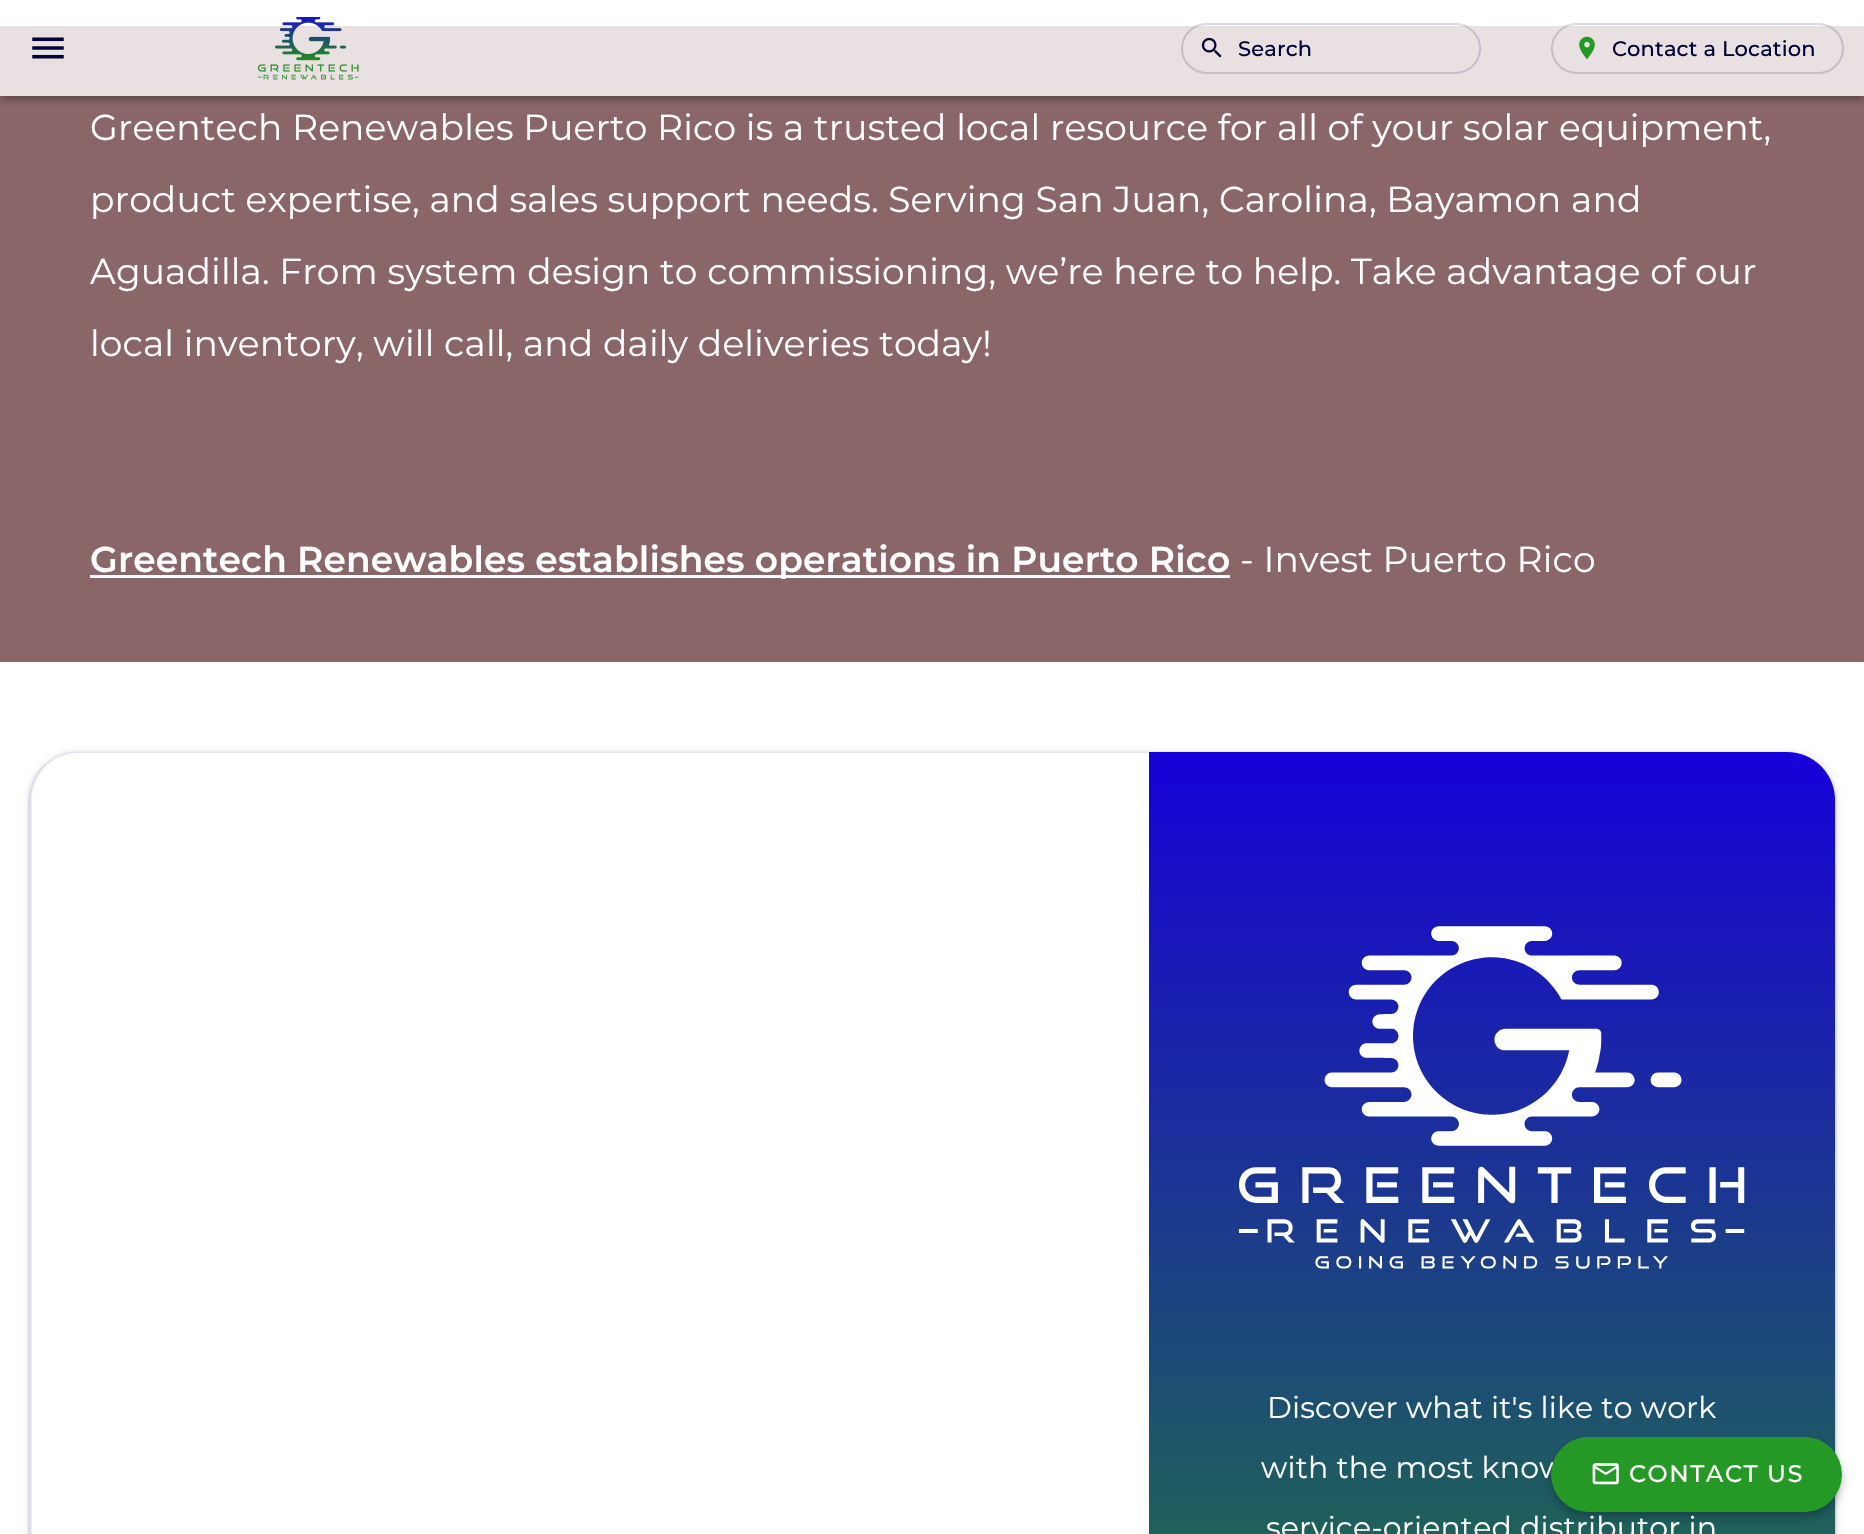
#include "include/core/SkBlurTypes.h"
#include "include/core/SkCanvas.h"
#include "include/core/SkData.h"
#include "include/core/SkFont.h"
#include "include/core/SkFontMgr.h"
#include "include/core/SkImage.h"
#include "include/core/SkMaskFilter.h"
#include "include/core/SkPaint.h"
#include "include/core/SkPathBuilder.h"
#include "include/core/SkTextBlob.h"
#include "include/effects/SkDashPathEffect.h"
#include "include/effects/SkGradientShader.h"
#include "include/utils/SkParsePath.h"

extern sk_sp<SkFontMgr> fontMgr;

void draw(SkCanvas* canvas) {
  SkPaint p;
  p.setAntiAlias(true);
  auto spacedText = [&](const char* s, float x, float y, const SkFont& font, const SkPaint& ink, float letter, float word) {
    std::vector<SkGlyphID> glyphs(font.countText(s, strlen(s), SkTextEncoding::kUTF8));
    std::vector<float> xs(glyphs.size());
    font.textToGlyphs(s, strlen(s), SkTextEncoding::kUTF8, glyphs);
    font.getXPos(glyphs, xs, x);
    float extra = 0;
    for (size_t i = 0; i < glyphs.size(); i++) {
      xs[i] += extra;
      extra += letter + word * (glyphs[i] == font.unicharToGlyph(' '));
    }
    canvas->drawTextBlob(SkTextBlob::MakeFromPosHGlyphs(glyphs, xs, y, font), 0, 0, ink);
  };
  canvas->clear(SK_ColorWHITE);
  p.setColor(SkColorSetRGB(138, 102, 104));
  canvas->drawRect(SkRect::MakeLTRB(0, 96, 1864, 662), p);
  p.setColor(SkColorSetRGB(232, 224, 225));
  canvas->drawRect(SkRect::MakeLTRB(0, 26, 1864, 96), p);
  canvas->save();
  canvas->clipRect(SkRect::MakeLTRB(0, 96, 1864, 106));
  p.setColor(SkColorSetARGB(36, 0, 0, 0));
  p.setMaskFilter(SkMaskFilter::MakeBlur(kNormal_SkBlurStyle, 4));
  canvas->drawRect(SkRect::MakeLTRB(0, 6, 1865, 102), p);
  p.setMaskFilter(nullptr);
  canvas->restore();
  canvas->save();
  canvas->clipRect(SkRect::MakeLTRB(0, 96, 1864, 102));
  p.setColor(SkColorSetARGB(51, 0, 0, 0));
  p.setMaskFilter(SkMaskFilter::MakeBlur(kNormal_SkBlurStyle, 3));
  canvas->drawRect(SkRect::MakeLTRB(2, 5, 1863, 98), p);
  p.setMaskFilter(nullptr);
  canvas->restore();
  canvas->drawImageRect(SkImages::DeferredFromEncodedData(SkData::MakeFromFileName("images/1.png")), SkRect::MakeLTRB(32, 37, 64, 59), SkSamplingOptions());
  canvas->drawImageRect(SkImages::DeferredFromEncodedData(SkData::MakeFromFileName("images/2.png")), SkRect::MakeLTRB(257, 17, 359, 80), SkSamplingOptions());
  p.setStyle(SkPaint::kStroke_Style);
  p.setStrokeWidth(2);
  p.setColor(SkColorSetARGB(38, 0, 3, 57));
  canvas->drawRoundRect(SkRect::MakeLTRB(1182, 24, 1480, 73), 24.5f, 24.5f, p);
  canvas->drawImageRect(SkImages::DeferredFromEncodedData(SkData::MakeFromFileName("images/3.png")), SkRect::MakeLTRB(1201, 37, 1222, 58), SkSamplingOptions());
  canvas->drawRoundRect(SkRect::MakeLTRB(1552, 24, 1843, 73), 24.5f, 24.5f, p);
  canvas->drawImageRect(SkImages::DeferredFromEncodedData(SkData::MakeFromFileName("images/4.png")), SkRect::MakeLTRB(1579, 36, 1595, 60), SkSamplingOptions());
  p.setStyle(SkPaint::kFill_Style);
  p.setColor(SK_ColorWHITE);
  canvas->drawRect(SkRect::MakeLTRB(90, 575, 1230, 578), p);
  canvas->save();
  canvas->clipPath(SkPathBuilder(SkPathFillType::kEvenOdd).moveTo(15, 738).lineTo(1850, 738).lineTo(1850, 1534).lineTo(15, 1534).close().moveTo(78, 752).lineTo(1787, 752).cubicTo(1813.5f, 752, 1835, 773.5f, 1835, 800).lineTo(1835, 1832).cubicTo(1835, 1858.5f, 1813.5f, 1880, 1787, 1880).lineTo(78, 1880).cubicTo(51.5f, 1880, 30, 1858.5f, 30, 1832).lineTo(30, 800).cubicTo(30, 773.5f, 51.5f, 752, 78, 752).close().detach(), true);
  p.setColor(SkColorSetARGB(31, 0, 0, 0));
  p.setMaskFilter(SkMaskFilter::MakeBlur(kNormal_SkBlurStyle, 4.5f));
  canvas->drawRoundRect(SkRect::MakeLTRB(30, 753, 1835, 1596), 48, 48, p);
  p.setMaskFilter(nullptr);
  canvas->restore();
  canvas->save();
  canvas->clipPath(SkPathBuilder(SkPathFillType::kEvenOdd).moveTo(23, 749).lineTo(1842, 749).lineTo(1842, 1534).lineTo(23, 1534).close().moveTo(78, 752).lineTo(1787, 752).cubicTo(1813.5f, 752, 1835, 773.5f, 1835, 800).lineTo(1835, 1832).cubicTo(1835, 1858.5f, 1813.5f, 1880, 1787, 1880).lineTo(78, 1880).cubicTo(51.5f, 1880, 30, 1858.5f, 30, 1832).lineTo(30, 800).cubicTo(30, 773.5f, 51.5f, 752, 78, 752).close().detach(), true);
  p.setColor(SkColorSetARGB(36, 0, 0, 0));
  p.setMaskFilter(SkMaskFilter::MakeBlur(kNormal_SkBlurStyle, 2));
  canvas->drawRoundRect(SkRect::MakeLTRB(30, 756, 1835, 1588), 48, 48, p);
  p.setMaskFilter(nullptr);
  canvas->restore();
  canvas->save();
  canvas->clipPath(SkPathBuilder(SkPathFillType::kEvenOdd).moveTo(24, 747).lineTo(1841, 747).lineTo(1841, 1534).lineTo(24, 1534).close().moveTo(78, 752).lineTo(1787, 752).cubicTo(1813.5f, 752, 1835, 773.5f, 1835, 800).lineTo(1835, 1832).cubicTo(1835, 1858.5f, 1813.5f, 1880, 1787, 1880).lineTo(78, 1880).cubicTo(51.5f, 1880, 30, 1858.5f, 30, 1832).lineTo(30, 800).cubicTo(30, 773.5f, 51.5f, 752, 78, 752).close().detach(), true);
  p.setColor(SkColorSetARGB(51, 0, 0, 0));
  p.setMaskFilter(SkMaskFilter::MakeBlur(kNormal_SkBlurStyle, 1.5f));
  canvas->drawRoundRect(SkRect::MakeLTRB(30, 753, 1835, 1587), 48, 48, p);
  p.setMaskFilter(nullptr);
  canvas->restore();
  p.setColor(SkColorSetARGB(26, 23, 0, 217));
  canvas->drawPath(SkPathBuilder().moveTo(78, 752).cubicTo(51, 752, 30, 773, 30, 800).lineTo(30, 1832).cubicTo(30, 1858, 51, 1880, 78, 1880).lineTo(1149, 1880).lineTo(1149, 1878).lineTo(78, 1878).cubicTo(52, 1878, 32, 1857, 32, 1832).lineTo(32, 800).cubicTo(32, 774, 52, 753, 78, 753).lineTo(1149, 753).lineTo(1149, 752).close().detach(), p);
  {
    const SkColor colors[] = {SkColorSetRGB(23, 0, 217), SkColorSetRGB(34, 139, 34)};
    const float stops[] = {0, 1};
    const SkPoint ends[] = {{1492, 752}, {1492, 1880}};
    p.setShader(SkGradientShader::MakeLinear(ends, colors, stops, 2, SkTileMode::kClamp));
    p.setAlpha(255);
  }
  canvas->drawPath(SkPathBuilder().moveTo(1149, 752).lineTo(1787, 752).cubicTo(1813.5f, 752, 1835, 773.5f, 1835, 800).lineTo(1835, 1534).cubicTo(1835, 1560.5f, 1813.5f, 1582, 1787, 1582).lineTo(1149, 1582).close().detach(), p);
  canvas->drawImageRect(SkImages::DeferredFromEncodedData(SkData::MakeFromFileName("images/5.png")), SkRect::MakeLTRB(1239, 926, 1745, 1269), SkSamplingOptions());
  p.setShader(nullptr);
  p.setColor(SkColorSetARGB(64, 0, 0, 0));
  p.setMaskFilter(SkMaskFilter::MakeBlur(kNormal_SkBlurStyle, 4));
  canvas->drawRoundRect(SkRect::MakeLTRB(1551, 1442, 1842, 1517), 37.5f, 37.5f, p);
  p.setMaskFilter(nullptr);
  SkFont font1(fontMgr->matchFamilyStyle("Montserrat", SkFontStyle(500, SkFontStyle::kNormal_Width, SkFontStyle::kUpright_Slant)), 21);
  font1.setSubpixel(true);
  p.setColor(SkColorSetRGB(0, 3, 57));
  spacedText("Search", 1238, 56, font1, p, 0.15f, 0);
  spacedText("Contact a Location", 1612, 56, font1, p, 0.15f, 0);
  SkFont font2(fontMgr->matchFamilyStyle("Montserrat", SkFontStyle::Normal()), 36);
  font2.setSubpixel(true);
  p.setColor(SK_ColorWHITE);
  spacedText("Greentech Renewables Puerto Rico is a trusted local resource for all of your solar equipment,", 90, 140, font2, p, 0.15f, 0);
  spacedText("product expertise, and sales support needs. Serving San Juan, Carolina, Bayamon and", 90, 212, font2, p, 0.15f, 0);
  spacedText("Aguadilla. From system design to commissioning, we’re here to help. Take advantage of our", 90, 284, font2, p, 0.15f, 0);
  spacedText("local inventory, will call, and daily deliveries today!", 90, 356, font2, p, 0.15f, 0);
  SkFont font3(fontMgr->matchFamilyStyle("Montserrat", SkFontStyle(600, SkFontStyle::kNormal_Width, SkFontStyle::kUpright_Slant)), 36);
  font3.setSubpixel(true);
  spacedText("Greentech Renewables establishes operations in Puerto Rico", 90, 572, font3, p, 0.15f, 0);
  spacedText("- Invest Puerto Rico", 1240, 572, font2, p, 0.15f, 0);
  SkFont font4(fontMgr->matchFamilyStyle("Montserrat", SkFontStyle::Normal()), 30);
  font4.setSubpixel(true);
  spacedText("Discover what it's like to work", 1267, 1418, font4, p, 0.15f, 0);
  spacedText("with the most know", 1261, 1478, font4, p, 0.15f, 0);
  spacedText("service-oriented distributor in", 1266, 1538, font4, p, 0.15f, 0);
  p.setColor(SkColorSetRGB(37, 153, 37));
  canvas->drawRoundRect(SkRect::MakeLTRB(1551, 1437, 1842, 1512), 37.5f, 37.5f, p);
  canvas->drawImageRect(SkImages::DeferredFromEncodedData(SkData::MakeFromFileName("images/6.png")), SkRect::MakeLTRB(1592, 1463, 1619, 1485), SkSamplingOptions());
  SkFont font5(fontMgr->matchFamilyStyle("Montserrat", SkFontStyle(500, SkFontStyle::kNormal_Width, SkFontStyle::kUpright_Slant)), 24);
  font5.setSubpixel(true);
  p.setColor(SK_ColorWHITE);
  spacedText("CONTACT US", 1629, 1482, font5, p, 1.5f, 0);
}
